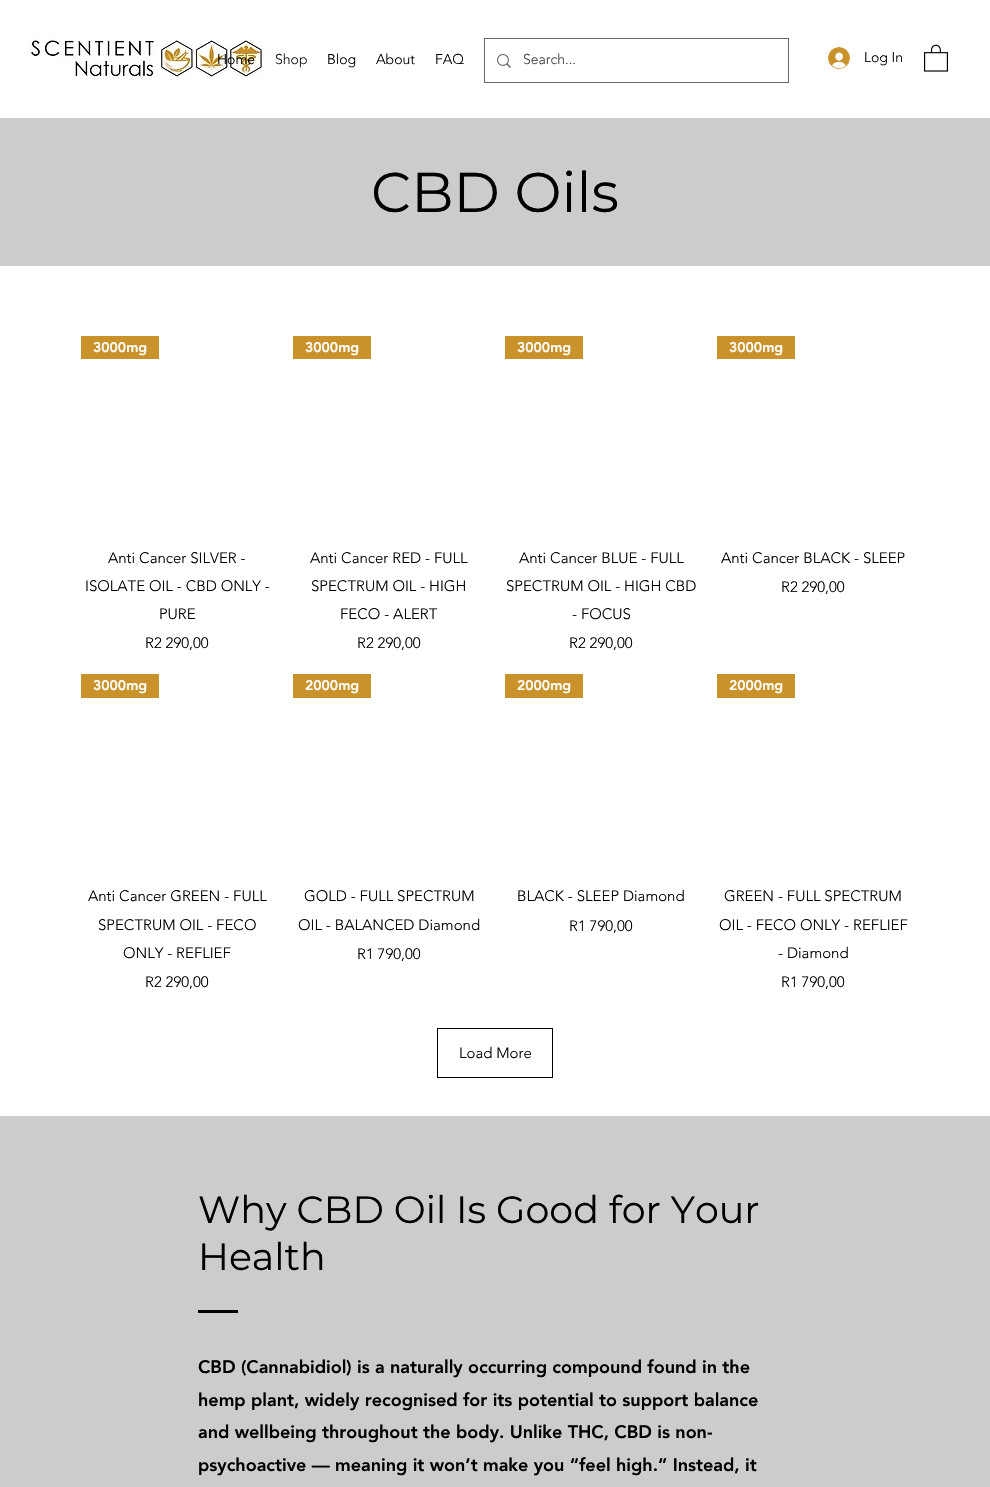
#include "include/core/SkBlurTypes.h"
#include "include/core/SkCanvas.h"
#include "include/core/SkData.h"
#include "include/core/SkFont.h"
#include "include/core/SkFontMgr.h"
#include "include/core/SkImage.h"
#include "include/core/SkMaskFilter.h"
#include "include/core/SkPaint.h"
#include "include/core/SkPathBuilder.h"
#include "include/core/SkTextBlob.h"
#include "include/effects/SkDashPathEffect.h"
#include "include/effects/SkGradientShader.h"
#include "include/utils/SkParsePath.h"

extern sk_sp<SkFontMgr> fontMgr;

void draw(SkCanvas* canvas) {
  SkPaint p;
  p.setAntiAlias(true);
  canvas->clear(SK_ColorWHITE);
  canvas->drawImageRect(SkImages::DeferredFromEncodedData(SkData::MakeFromFileName("images/1.png")), SkRect::MakeLTRB(29, 37, 265, 77), SkSamplingOptions());
  p.setStyle(SkPaint::kStroke_Style);
  p.setStrokeWidth(1);
  p.setColor(SkColorSetRGB(102, 102, 102));
  canvas->drawRect(SkRect::MakeLTRB(484.5f, 38.5f, 788.5f, 82.5f), p);
  canvas->drawImageRect(SkImages::DeferredFromEncodedData(SkData::MakeFromFileName("images/2.png")), SkRect::MakeLTRB(497, 54, 511, 68), SkSamplingOptions());
  canvas->drawImageRect(SkImages::DeferredFromEncodedData(SkData::MakeFromFileName("images/3.png")), SkRect::MakeLTRB(828, 47, 850, 69), SkSamplingOptions());
  canvas->drawImageRect(SkImages::DeferredFromEncodedData(SkData::MakeFromFileName("images/4.png")), SkRect::MakeLTRB(924, 44, 948, 72), SkSamplingOptions());
  p.setStyle(SkPaint::kFill_Style);
  p.setColor(SkColorSetRGB(204, 204, 204));
  canvas->drawRect(SkRect::MakeLTRB(0, 118, 990, 266), p);
  p.setColor(SkColorSetRGB(201, 146, 42));
  canvas->drawRect(SkRect::MakeLTRB(81, 336, 159, 359), p);
  canvas->drawRect(SkRect::MakeLTRB(293, 336, 371, 359), p);
  canvas->drawRect(SkRect::MakeLTRB(505, 336, 583, 359), p);
  canvas->drawRect(SkRect::MakeLTRB(717, 336, 795, 359), p);
  canvas->drawRect(SkRect::MakeLTRB(81, 674, 159, 698), p);
  canvas->drawRect(SkRect::MakeLTRB(293, 674, 371, 698), p);
  canvas->drawRect(SkRect::MakeLTRB(505, 674, 583, 698), p);
  canvas->drawRect(SkRect::MakeLTRB(717, 674, 795, 698), p);
  p.setStyle(SkPaint::kStroke_Style);
  p.setColor(SK_ColorBLACK);
  canvas->drawRect(SkRect::MakeLTRB(437.5f, 1028.5f, 552.5f, 1077.5f), p);
  p.setStyle(SkPaint::kFill_Style);
  p.setColor(SkColorSetRGB(204, 204, 204));
  canvas->drawRect(SkRect::MakeLTRB(0, 1116, 990, 1487), p);
  p.setColor(SK_ColorBLACK);
  canvas->drawRect(SkRect::MakeLTRB(198, 1310, 238, 1313), p);
  SkFont font1(fontMgr->matchFamilyStyle("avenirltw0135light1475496", SkFontStyle(300, SkFontStyle::kNormal_Width, SkFontStyle::kUpright_Slant)), 14);
  font1.setSubpixel(true);
  canvas->drawString("Home", 217, 64, font1, p);
  p.setColor(SkColorSetRGB(22, 22, 22));
  canvas->drawString("Shop", 275, 64, font1, p);
  p.setColor(SK_ColorBLACK);
  canvas->drawString("Blog", 327, 64, font1, p);
  canvas->drawString("About", 376, 64, font1, p);
  canvas->drawString("FAQ", 435, 64, font1, p);
  p.setColor(SkColorSetRGB(64, 64, 64));
  canvas->drawString("Search...", 523, 64, font1, p);
  p.setColor(SK_ColorBLACK);
  canvas->drawString("Log In", 864, 62, font1, p);
  SkFont font2(fontMgr->matchFamilyStyle("Montserrat", SkFontStyle::Normal()), 56);
  font2.setSubpixel(true);
  canvas->drawString("CBD Oils", 371, 212, font2, p);
  SkFont font3(fontMgr->matchFamilyStyle("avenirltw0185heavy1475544", SkFontStyle(900, SkFontStyle::kNormal_Width, SkFontStyle::kUpright_Slant)), 14);
  font3.setSubpixel(true);
  p.setColor(SK_ColorWHITE);
  canvas->drawString("3000mg", 93, 352, font3, p);
  SkFont font4(fontMgr->matchFamilyStyle("avenirltw0135light1475496", SkFontStyle(300, SkFontStyle::kNormal_Width, SkFontStyle::kUpright_Slant)), 15);
  font4.setSubpixel(true);
  p.setColor(SK_ColorBLACK);
  canvas->drawString("Anti Cancer SILVER -", 108, 563, font4, p);
  canvas->drawString("ISOLATE OIL - CBD ONLY -", 85, 591, font4, p);
  canvas->drawString("PURE", 159, 619, font4, p);
  canvas->drawString("R2 290,00", 145, 648, font4, p);
  p.setColor(SK_ColorWHITE);
  canvas->drawString("3000mg", 305, 352, font3, p);
  p.setColor(SK_ColorBLACK);
  canvas->drawString("Anti Cancer RED - FULL", 310, 563, font4, p);
  canvas->drawString("SPECTRUM OIL - HIGH", 311, 591, font4, p);
  canvas->drawString("FECO - ALERT", 340, 619, font4, p);
  canvas->drawString("R2 290,00", 357, 648, font4, p);
  p.setColor(SK_ColorWHITE);
  canvas->drawString("3000mg", 517, 352, font3, p);
  p.setColor(SK_ColorBLACK);
  canvas->drawString("Anti Cancer BLUE - FULL", 519, 563, font4, p);
  canvas->drawString("SPECTRUM OIL - HIGH CBD", 506, 591, font4, p);
  canvas->drawString("- FOCUS", 572, 619, font4, p);
  canvas->drawString("R2 290,00", 569, 648, font4, p);
  p.setColor(SK_ColorWHITE);
  canvas->drawString("3000mg", 729, 352, font3, p);
  p.setColor(SK_ColorBLACK);
  canvas->drawString("Anti Cancer BLACK - SLEEP", 721, 563, font4, p);
  canvas->drawString("R2 290,00", 781, 592, font4, p);
  p.setColor(SK_ColorWHITE);
  canvas->drawString("3000mg", 93, 690, font3, p);
  p.setColor(SK_ColorBLACK);
  canvas->drawString("Anti Cancer GREEN - FULL", 88, 901, font4, p);
  canvas->drawString("SPECTRUM OIL - FECO", 98, 930, font4, p);
  canvas->drawString("ONLY - REFLIEF", 123, 958, font4, p);
  canvas->drawString("R2 290,00", 145, 987, font4, p);
  p.setColor(SK_ColorWHITE);
  canvas->drawString("2000mg", 305, 690, font3, p);
  p.setColor(SK_ColorBLACK);
  canvas->drawString("GOLD - FULL SPECTRUM", 304, 901, font4, p);
  canvas->drawString("OIL - BALANCED Diamond", 298, 930, font4, p);
  canvas->drawString("R1 790,00", 357, 959, font4, p);
  p.setColor(SK_ColorWHITE);
  canvas->drawString("2000mg", 517, 690, font3, p);
  p.setColor(SK_ColorBLACK);
  canvas->drawString("BLACK - SLEEP Diamond", 517, 901, font4, p);
  canvas->drawString("R1 790,00", 569, 931, font4, p);
  p.setColor(SK_ColorWHITE);
  canvas->drawString("2000mg", 729, 690, font3, p);
  p.setColor(SK_ColorBLACK);
  canvas->drawString("GREEN - FULL SPECTRUM", 724, 901, font4, p);
  canvas->drawString("OIL - FECO ONLY - REFLIEF", 719, 930, font4, p);
  canvas->drawString("- Diamond", 778, 958, font4, p);
  canvas->drawString("R1 790,00", 781, 987, font4, p);
  canvas->drawString("Load More", 459, 1058, font4, p);
  SkFont font5(fontMgr->matchFamilyStyle("Montserrat", SkFontStyle::Normal()), 38);
  font5.setSubpixel(true);
  canvas->drawString("Why CBD Oil Is Good for Your", 198, 1223, font5, p);
  canvas->drawString("Health", 198, 1270, font5, p);
  SkFont font6(fontMgr->matchFamilyStyle("avenirltw0185heavy1475544", SkFontStyle(900, SkFontStyle::kNormal_Width, SkFontStyle::kUpright_Slant)), 18);
  font6.setSubpixel(true);
  canvas->drawString("CBD (Cannabidiol) is a naturally occurring compound found in the", 198, 1373, font6, p);
  canvas->drawString("hemp plant, widely recognised for its potential to support balance", 198, 1406, font6, p);
  canvas->drawString("and wellbeing throughout the body. Unlike THC, CBD is non-", 198, 1438, font6, p);
  canvas->drawString("psychoactive — meaning it won’t make you “feel high.” Instead, it", 198, 1471, font6, p);
}
